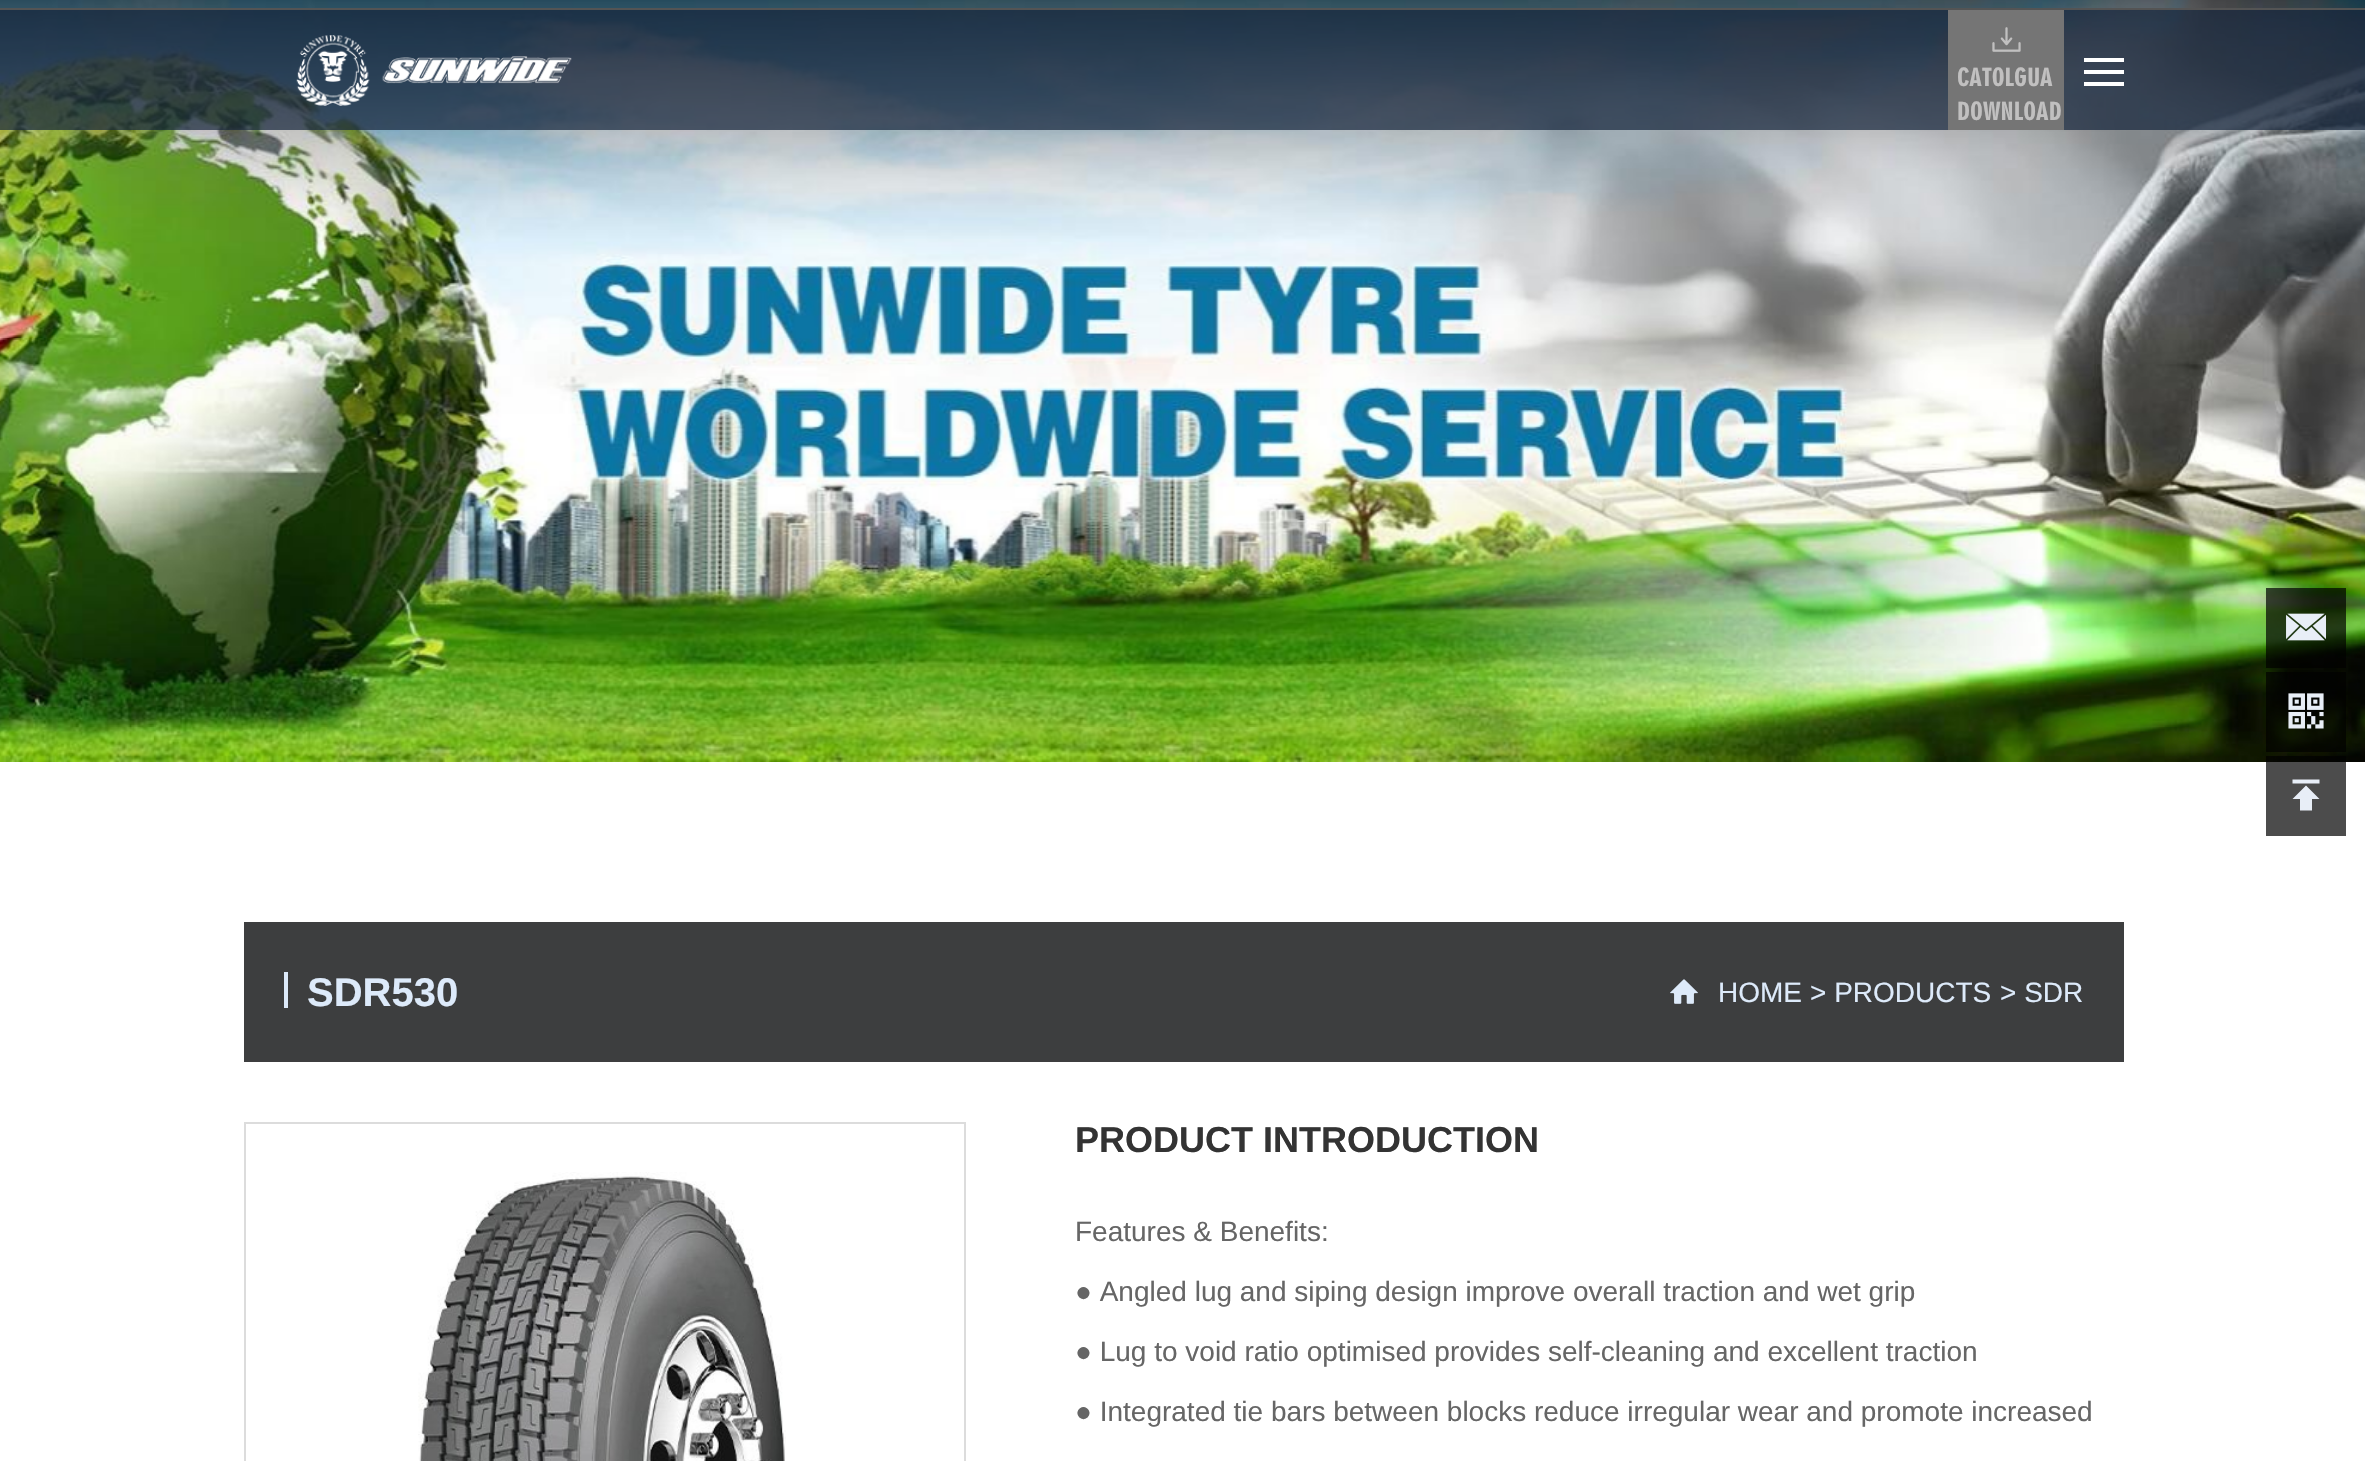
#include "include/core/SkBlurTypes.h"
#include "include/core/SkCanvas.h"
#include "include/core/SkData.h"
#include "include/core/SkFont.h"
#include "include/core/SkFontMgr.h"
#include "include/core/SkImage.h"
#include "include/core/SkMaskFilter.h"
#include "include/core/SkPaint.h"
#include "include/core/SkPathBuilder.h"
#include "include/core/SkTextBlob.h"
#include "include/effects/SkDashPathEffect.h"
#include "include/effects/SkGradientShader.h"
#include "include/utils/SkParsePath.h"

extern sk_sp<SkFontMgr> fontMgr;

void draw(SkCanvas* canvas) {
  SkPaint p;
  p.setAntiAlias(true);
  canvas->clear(SK_ColorWHITE);
  canvas->drawImageRect(SkImages::DeferredFromEncodedData(SkData::MakeFromFileName("images/1.png")), SkRect::MakeLTRB(0, 0, 2365, 762), SkSamplingOptions());
  p.setColor(SkColorSetRGB(84, 84, 84));
  canvas->drawRect(SkRect::MakeLTRB(0, 8, 2365, 10), p);
  p.setColor(SkColorSetARGB(179, 20, 35, 58));
  canvas->drawRect(SkRect::MakeLTRB(0, 10, 2365, 130), p);
  canvas->drawImageRect(SkImages::DeferredFromEncodedData(SkData::MakeFromFileName("images/2.png")), SkRect::MakeLTRB(296, 35, 572, 106), SkSamplingOptions());
  p.setColor(SkColorSetRGB(117, 117, 117));
  canvas->drawRect(SkRect::MakeLTRB(1948, 10, 2064, 130), p);
  canvas->drawImageRect(SkImages::DeferredFromEncodedData(SkData::MakeFromFileName("images/3.png")), SkRect::MakeLTRB(1992, 27, 2021, 52), SkSamplingOptions());
  p.setColor(SK_ColorWHITE);
  canvas->drawRect(SkRect::MakeLTRB(2084, 58, 2124, 62), p);
  canvas->drawRect(SkRect::MakeLTRB(2084, 70, 2124, 74), p);
  canvas->drawRect(SkRect::MakeLTRB(2084, 82, 2124, 86), p);
  p.setColor(SkColorSetARGB(179, 0, 0, 0));
  canvas->drawRect(SkRect::MakeLTRB(2266, 588, 2346, 668), p);
  canvas->drawImageRect(SkImages::DeferredFromEncodedData(SkData::MakeFromFileName("images/4.png")), SkRect::MakeLTRB(2286, 613, 2326, 641), SkSamplingOptions());
  canvas->drawRect(SkRect::MakeLTRB(2266, 672, 2346, 752), p);
  canvas->drawImageRect(SkImages::DeferredFromEncodedData(SkData::MakeFromFileName("images/5.png")), SkRect::MakeLTRB(2288, 693, 2324, 729), SkSamplingOptions());
  canvas->drawRect(SkRect::MakeLTRB(2266, 756, 2346, 836), p);
  p.setColor(SkColorSetRGB(232, 238, 247));
  canvas->drawPath(SkPathBuilder().moveTo(2292.5f, 799).lineTo(2300, 799).lineTo(2300, 810.5f).lineTo(2312, 810.5f).lineTo(2312, 799).lineTo(2319.5f, 799).lineTo(2306, 785.5f).close().moveTo(2292.5f, 779.5f).lineTo(2319.5f, 779.5f).lineTo(2319.5f, 783.5f).lineTo(2292.5f, 783.5f).close().detach(), p);
  p.setColor(SkColorSetRGB(61, 62, 63));
  canvas->drawRect(SkRect::MakeLTRB(244, 922, 2124, 1062), p);
  p.setColor(SkColorSetRGB(221, 234, 250));
  canvas->drawRect(SkRect::MakeLTRB(284, 972, 288, 1008), p);
  canvas->drawImageRect(SkImages::DeferredFromEncodedData(SkData::MakeFromFileName("images/6.png")), SkRect::MakeLTRB(1670, 979, 1698, 1004), SkSamplingOptions());
  p.setStyle(SkPaint::kStroke_Style);
  p.setStrokeWidth(2);
  p.setColor(SkColorSetRGB(220, 220, 220));
  canvas->drawRect(SkRect::MakeLTRB(245, 1123, 965, 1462), p);
  canvas->drawImageRect(SkImages::DeferredFromEncodedData(SkData::MakeFromFileName("images/7.png")), SkRect::MakeLTRB(418, 1172, 786, 1461), SkSamplingOptions());
  SkFont font1(fontMgr->matchFamilyStyle("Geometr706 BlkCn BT", SkFontStyle(900, SkFontStyle::kNormal_Width, SkFontStyle::kUpright_Slant)), 24);
  font1.setSubpixel(true);
  p.setStyle(SkPaint::kFill_Style);
  p.setColor(SkColorSetRGB(193, 192, 192));
  canvas->drawString("CATOLGUA", 1957, 86, font1, p);
  canvas->drawString("DOWNLOAD", 1957, 120, font1, p);
  SkFont font2(fontMgr->matchFamilyStyle("Liberation Sans", SkFontStyle::Bold()), 40);
  font2.setSubpixel(true);
  p.setColor(SkColorSetRGB(221, 234, 250));
  canvas->drawString("SDR530", 307, 1006, font2, p);
  SkFont font3(fontMgr->matchFamilyStyle("Liberation Sans", SkFontStyle::Normal()), 28);
  font3.setSubpixel(true);
  canvas->drawString("HOME", 1718, 1002, font3, p);
  canvas->drawString("> PRODUCTS", 1810, 1002, font3, p);
  canvas->drawString("> SDR", 2000, 1002, font3, p);
  SkFont font4(fontMgr->matchFamilyStyle("Liberation Sans", SkFontStyle::Bold()), 36);
  font4.setSubpixel(true);
  p.setColor(SkColorSetRGB(51, 51, 51));
  canvas->drawString("PRODUCT INTRODUCTION", 1075, 1152, font4, p);
  p.setColor(SkColorSetRGB(102, 102, 102));
  canvas->drawString("Features & Benefits:", 1075, 1241, font3, p);
  canvas->drawString("● Angled lug and siping design improve overall traction and wet grip", 1075, 1301, font3, p);
  canvas->drawString("● Lug to void ratio optimised provides self-cleaning and excellent traction", 1075, 1361, font3, p);
  canvas->drawString("● Integrated tie bars between blocks reduce irregular wear and promote increased", 1075, 1421, font3, p);
}
